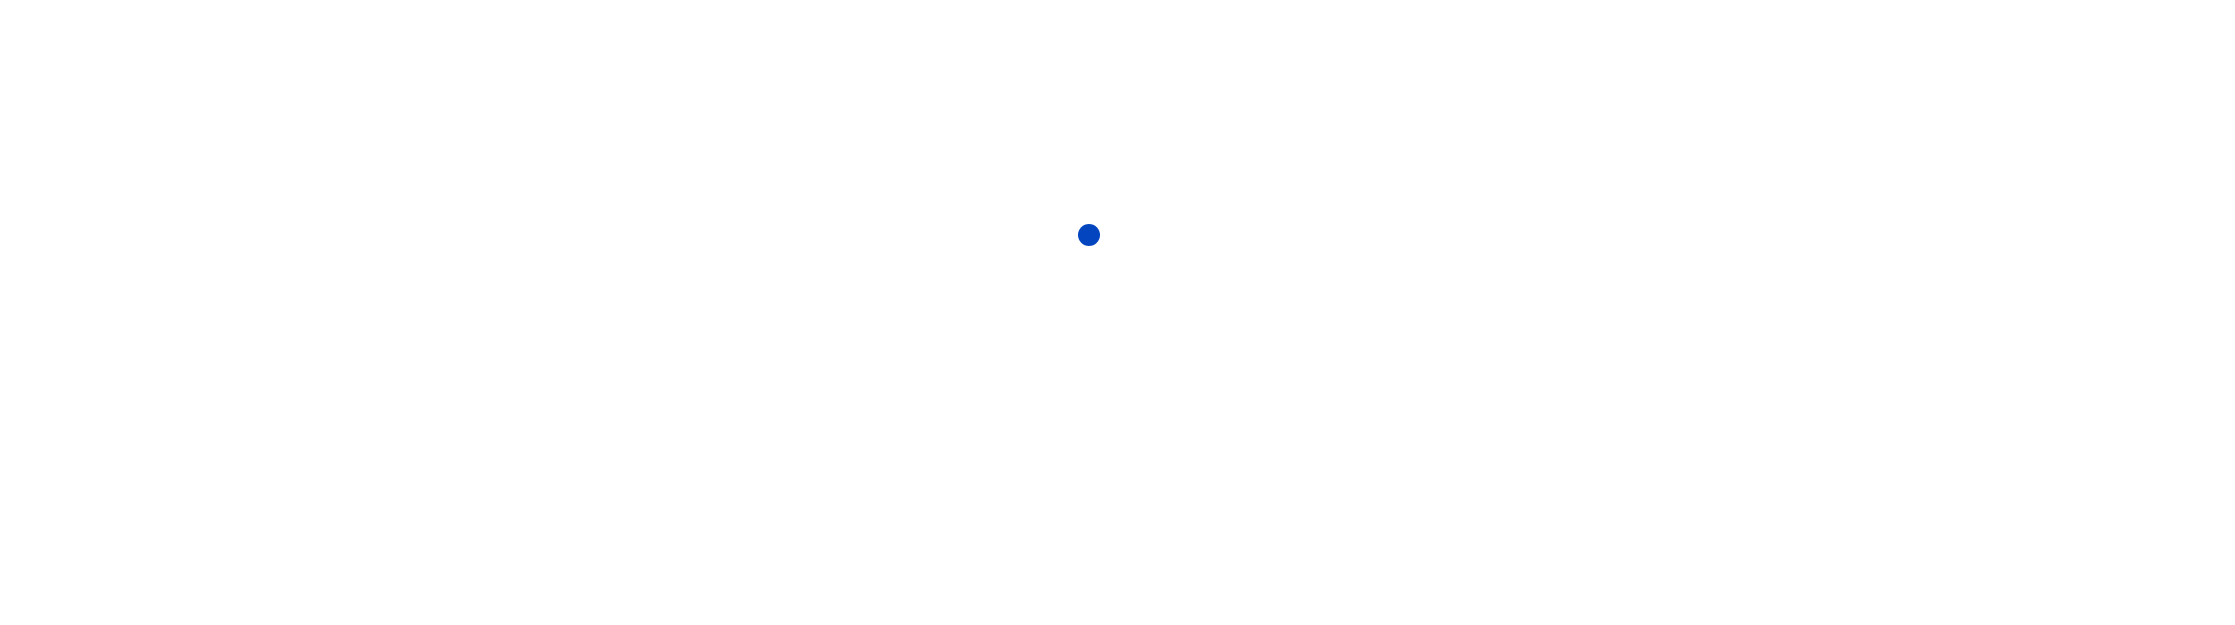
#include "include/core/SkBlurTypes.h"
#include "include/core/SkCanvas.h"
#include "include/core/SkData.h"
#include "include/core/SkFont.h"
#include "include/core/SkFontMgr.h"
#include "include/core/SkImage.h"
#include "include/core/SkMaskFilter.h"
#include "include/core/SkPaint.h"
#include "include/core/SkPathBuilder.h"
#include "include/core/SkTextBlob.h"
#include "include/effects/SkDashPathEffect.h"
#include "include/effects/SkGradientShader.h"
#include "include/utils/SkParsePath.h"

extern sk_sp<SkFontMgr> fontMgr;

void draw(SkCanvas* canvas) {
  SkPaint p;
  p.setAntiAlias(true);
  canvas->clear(SK_ColorWHITE);
  p.setColor(SkColorSetRGB(3, 69, 191));
  canvas->drawCircle(1089, 235, 11, p);
}
